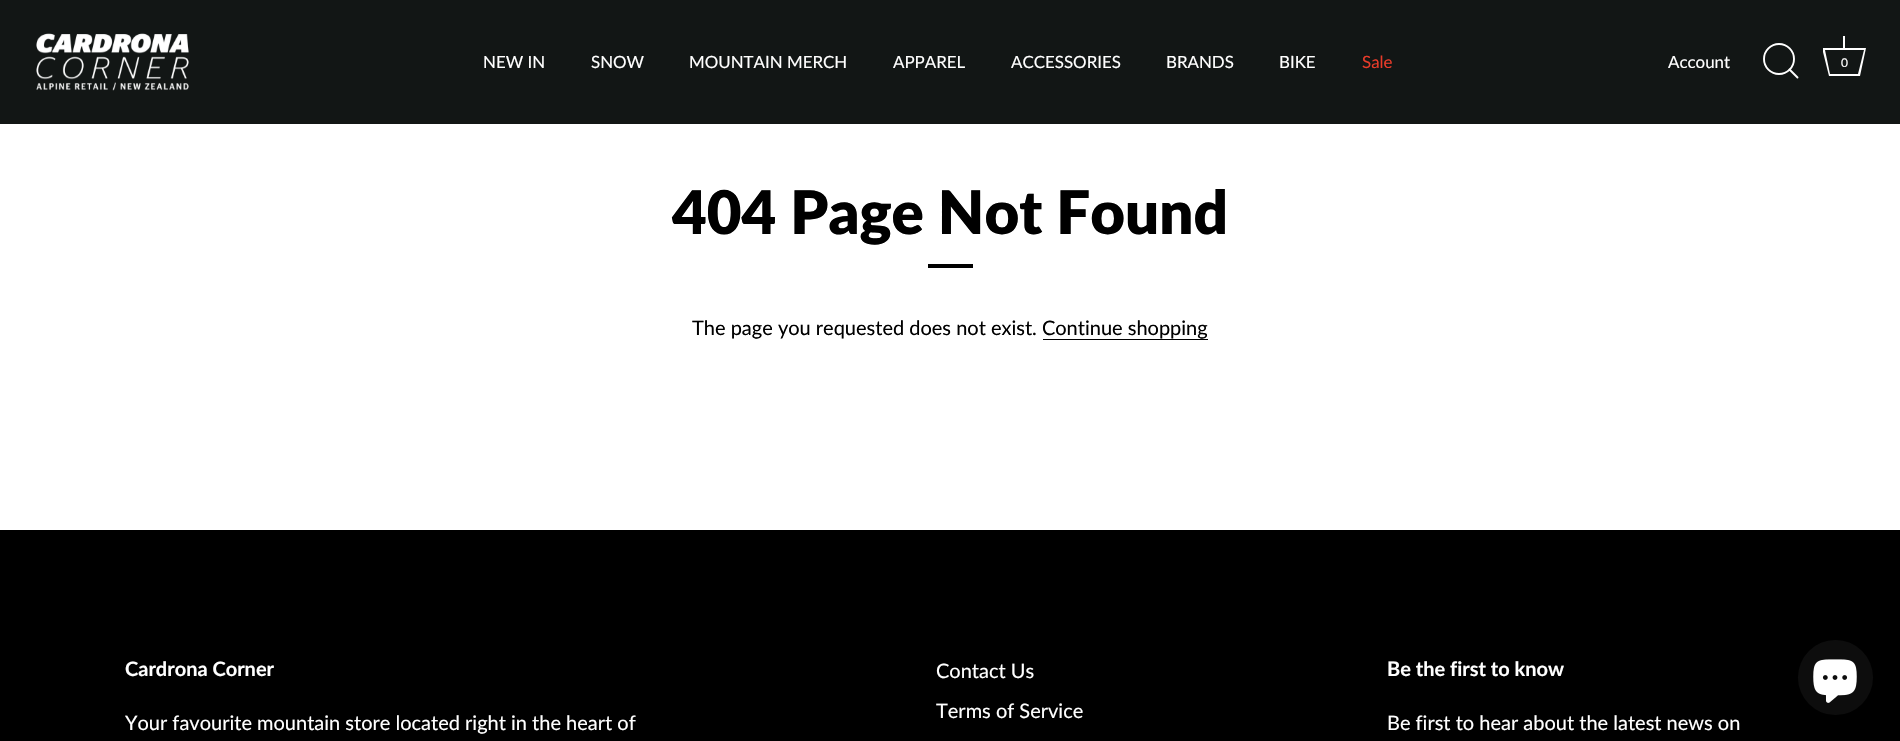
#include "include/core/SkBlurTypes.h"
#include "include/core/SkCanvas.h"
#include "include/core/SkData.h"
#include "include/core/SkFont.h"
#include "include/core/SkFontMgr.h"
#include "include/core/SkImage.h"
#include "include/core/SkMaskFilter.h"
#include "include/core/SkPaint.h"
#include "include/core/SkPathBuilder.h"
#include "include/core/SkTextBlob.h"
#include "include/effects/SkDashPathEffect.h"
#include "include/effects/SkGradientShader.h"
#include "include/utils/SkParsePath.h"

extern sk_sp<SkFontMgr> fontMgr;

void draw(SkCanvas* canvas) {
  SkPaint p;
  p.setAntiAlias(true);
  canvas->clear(SK_ColorWHITE);
  p.setColor(SkColorSetRGB(18, 22, 21));
  canvas->drawRect(SkRect::MakeLTRB(0, 0, 1900, 124), p);
  canvas->drawImageRect(SkImages::DeferredFromEncodedData(SkData::MakeFromFileName("images/1.png")), SkRect::MakeLTRB(36, 33, 189, 91), SkSamplingOptions());
  p.setStyle(SkPaint::kStroke_Style);
  p.setStrokeWidth(1.9f);
  p.setColor(SK_ColorWHITE);
  canvas->drawCircle(1779, 59, 15, p);
  p.setStrokeCap(SkPaint::kRound_Cap);
  p.setStrokeJoin(SkPaint::kRound_Join);
  canvas->drawPath(SkPathBuilder().moveTo(1797.5f, 77.5f).lineTo(1789.5f, 69.5f).detach(), p);
  p.setStyle(SkPaint::kFill_Style);
  canvas->drawRect(SkRect::MakeLTRB(1843, 36, 1845, 48), p);
  canvas->save();
  canvas->clipRect(SkRect::MakeLTRB(1823, 34, 1866, 78));
  canvas->drawPath(SkPathBuilder().moveTo(1864, 50).lineTo(1858, 74).lineTo(1830, 74).lineTo(1825, 50).lineTo(1864, 50).moveTo(1866, 48).lineTo(1822, 48).lineTo(1829, 76).lineTo(1860, 76).close().detach(), p);
  canvas->restore();
  p.setColor(SK_ColorBLACK);
  canvas->drawRect(SkRect::MakeLTRB(928, 264, 973, 268), p);
  canvas->drawRect(SkRect::MakeLTRB(1043, 339, 1208, 340), p);
  canvas->drawRect(SkRect::MakeLTRB(0, 530, 1900, 741), p);
  p.setColor(SkColorSetRGB(13, 13, 13));
  canvas->drawCircle(1835.5f, 677.5f, 37.5f, p);
  canvas->drawImageRect(SkImages::DeferredFromEncodedData(SkData::MakeFromFileName("images/2.png")), SkRect::MakeLTRB(1813, 659, 1857, 703), SkSamplingOptions());
  SkFont font1(fontMgr->matchFamilyStyle("Lato", SkFontStyle::Normal()), 16.9f);
  font1.setSubpixel(true);
  p.setColor(SK_ColorWHITE);
  canvas->drawString("NEW IN", 483, 68, font1, p);
  canvas->drawString("SNOW", 591, 68, font1, p);
  canvas->drawString("MOUNTAIN MERCH", 689, 68, font1, p);
  canvas->drawString("APPAREL", 893, 68, font1, p);
  canvas->drawString("ACCESSORIES", 1011, 68, font1, p);
  canvas->drawString("BRANDS", 1166, 68, font1, p);
  canvas->drawString("BIKE", 1279, 68, font1, p);
  p.setColor(SkColorSetRGB(233, 59, 41));
  canvas->drawString("Sale", 1362, 68, font1, p);
  p.setColor(SK_ColorWHITE);
  canvas->drawString("Account", 1668, 68, font1, p);
  SkFont font2(fontMgr->matchFamilyStyle("Lato", SkFontStyle::Normal()), 12);
  font2.setSubpixel(true);
  canvas->drawString("0", 1841, 67, font2, p);
  SkFont font3(fontMgr->matchFamilyStyle("Lato", SkFontStyle(800, SkFontStyle::kNormal_Width, SkFontStyle::kUpright_Slant)), 60);
  font3.setSubpixel(true);
  p.setColor(SK_ColorBLACK);
  canvas->drawString("404 Page Not Found", 672, 234, font3, p);
  SkFont font4(fontMgr->matchFamilyStyle("Lato", SkFontStyle::Normal()), 20);
  font4.setSubpixel(true);
  canvas->drawString("The page you requested does not exist. Continue shopping", 692, 335, font4, p);
  SkFont font5(fontMgr->matchFamilyStyle("Lato", SkFontStyle::Bold()), 20);
  font5.setSubpixel(true);
  p.setColor(SK_ColorWHITE);
  canvas->drawString("Cardrona Corner", 125, 676, font5, p);
  canvas->drawString("Your favourite mountain store located right in the heart of", 125, 730, font4, p);
  canvas->drawString("Contact Us", 936, 678, font4, p);
  canvas->drawString("Terms of Service", 936, 718, font4, p);
  canvas->drawString("Be the first to know", 1387, 676, font5, p);
  canvas->drawString("Be first to hear about the latest news on", 1387, 730, font4, p);
}
